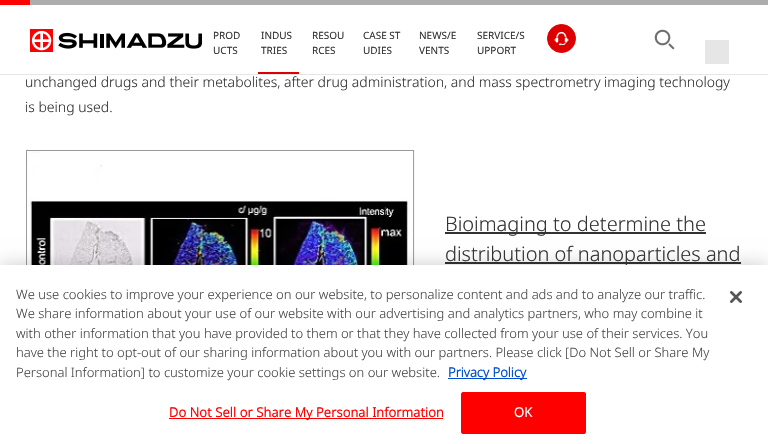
#include "include/core/SkBlurTypes.h"
#include "include/core/SkCanvas.h"
#include "include/core/SkData.h"
#include "include/core/SkFont.h"
#include "include/core/SkFontMgr.h"
#include "include/core/SkImage.h"
#include "include/core/SkMaskFilter.h"
#include "include/core/SkPaint.h"
#include "include/core/SkPathBuilder.h"
#include "include/core/SkTextBlob.h"
#include "include/effects/SkDashPathEffect.h"
#include "include/effects/SkGradientShader.h"
#include "include/utils/SkParsePath.h"

extern sk_sp<SkFontMgr> fontMgr;

void draw(SkCanvas* canvas) {
  SkPaint p;
  p.setAntiAlias(true);
  auto spacedText = [&](const char* s, float x, float y, const SkFont& font, const SkPaint& ink, float letter, float word) {
    std::vector<SkGlyphID> glyphs(font.countText(s, strlen(s), SkTextEncoding::kUTF8));
    std::vector<float> xs(glyphs.size());
    font.textToGlyphs(s, strlen(s), SkTextEncoding::kUTF8, glyphs);
    font.getXPos(glyphs, xs, x);
    float extra = 0;
    for (size_t i = 0; i < glyphs.size(); i++) {
      xs[i] += extra;
      extra += letter + word * (glyphs[i] == font.unicharToGlyph(' '));
    }
    canvas->drawTextBlob(SkTextBlob::MakeFromPosHGlyphs(glyphs, xs, y, font), 0, 0, ink);
  };
  canvas->clear(SK_ColorWHITE);
  p.setColor(SkColorSetRGB(173, 173, 173));
  canvas->drawRect(SkRect::MakeLTRB(30, 0, 768, 5), p);
  p.setColor(SkColorSetRGB(255, 0, 0));
  canvas->drawRect(SkRect::MakeLTRB(0, 0, 30, 5), p);
  p.setColor(SkColorSetRGB(230, 230, 230));
  canvas->drawRect(SkRect::MakeLTRB(0, 74, 205, 75), p);
  canvas->drawImageRect(SkImages::DeferredFromEncodedData(SkData::MakeFromFileName("images/1.png")), SkRect::MakeLTRB(30, 29, 202, 52), SkSamplingOptions());
  canvas->drawRect(SkRect::MakeLTRB(205, 74, 768, 75), p);
  canvas->drawImageRect(SkImages::DeferredFromEncodedData(SkData::MakeFromFileName("images/2.png")), SkRect::MakeLTRB(654, 29, 675, 50), SkSamplingOptions());
  canvas->drawRect(SkRect::MakeLTRB(705, 40, 729, 48), p);
  canvas->drawRect(SkRect::MakeLTRB(705, 48, 729, 56), p);
  canvas->drawRect(SkRect::MakeLTRB(705, 56, 729, 64), p);
  p.setColor(SkColorSetRGB(221, 0, 0));
  canvas->drawRect(SkRect::MakeLTRB(258, 72, 299, 74), p);
  canvas->drawCircle(561.5f, 38.5f, 14, p);
  p.setStyle(SkPaint::kStroke_Style);
  p.setStrokeWidth(1);
  canvas->drawCircle(561.5f, 38.5f, 14, p);
  canvas->drawImageRect(SkImages::DeferredFromEncodedData(SkData::MakeFromFileName("images/3.png")), SkRect::MakeLTRB(554, 31, 569, 46), SkSamplingOptions());
  canvas->drawImageRect(SkImages::DeferredFromEncodedData(SkData::MakeFromFileName("images/4.png")), SkRect::MakeLTRB(26, 149, 415, 265), SkSamplingOptions());
  p.setStyle(SkPaint::kFill_Style);
  p.setColor(SkColorSetRGB(51, 51, 51));
  canvas->drawRect(SkRect::MakeLTRB(445, 232, 706, 234), p);
  canvas->drawRect(SkRect::MakeLTRB(445, 262, 741, 264), p);
  p.setColor(SkColorSetARGB(51, 0, 0, 0));
  p.setMaskFilter(SkMaskFilter::MakeBlur(kNormal_SkBlurStyle, 9));
  canvas->drawRect(SkRect::MakeLTRB(0, 265, 768, 444), p);
  p.setMaskFilter(nullptr);
  SkFont font1(fontMgr->matchFamilyStyle("Noto Sans", SkFontStyle::Normal()), 10);
  font1.setSubpixel(true);
  p.setColor(SkColorSetRGB(51, 51, 51));
  canvas->drawString("PROD", 213, 39, font1, p);
  canvas->drawString("UCTS", 213, 54, font1, p);
  canvas->drawString("INDUS", 261, 39, font1, p);
  canvas->drawString("TRIES", 261, 54, font1, p);
  canvas->drawString("RESOU", 312, 39, font1, p);
  canvas->drawString("RCES", 312, 54, font1, p);
  canvas->drawString("CASE ST", 363, 39, font1, p);
  canvas->drawString("UDIES", 363, 54, font1, p);
  canvas->drawString("NEWS/E", 419, 39, font1, p);
  canvas->drawString("VENTS", 419, 54, font1, p);
  canvas->drawString("SERVICE/S", 477, 39, font1, p);
  canvas->drawString("UPPORT", 477, 54, font1, p);
  SkFont font2(fontMgr->matchFamilyStyle("Noto Sans", SkFontStyle(300, SkFontStyle::kNormal_Width, SkFontStyle::kUpright_Slant)), 14);
  font2.setSubpixel(true);
  canvas->drawString("unchanged drugs and their metabolites, after drug administration, and mass spectrometry imaging technology", 25, 87, font2, p);
  canvas->drawString("is being used.", 25, 112, font2, p);
  SkFont font3(fontMgr->matchFamilyStyle("Noto Sans", SkFontStyle(300, SkFontStyle::kNormal_Width, SkFontStyle::kUpright_Slant)), 20);
  font3.setSubpixel(true);
  canvas->drawString("Bioimaging to determine the", 445, 231, font3, p);
  canvas->drawString("distribution of nanoparticles and", 445, 261, font3, p);
  p.setColor(SK_ColorWHITE);
  canvas->drawRect(SkRect::MakeLTRB(0, 265, 768, 444), p);
  SkFont font4(fontMgr->matchFamilyStyle("Noto Sans", SkFontStyle(300, SkFontStyle::kNormal_Width, SkFontStyle::kUpright_Slant)), 13);
  font4.setSubpixel(true);
  p.setColor(SkColorSetRGB(70, 70, 70));
  canvas->drawString("We use cookies to improve your experience on our website, to personalize content and ads and to analyze our traffic.", 16, 299, font4, p);
  canvas->drawString("We share information about your use of our website with our advertising and analytics partners, who may combine it", 16, 318, font4, p);
  canvas->drawString("with other information that you have provided to them or that they have collected from your use of their services. You", 16, 338, font4, p);
  canvas->drawString("have the right to opt-out of our sharing information about you with our partners. Please click [Do Not Sell or Share My", 16, 357, font4, p);
  canvas->drawString("Personal Information] to customize your cookie settings on our website.", 16, 377, font4, p);
  p.setColor(SkColorSetRGB(0, 78, 204));
  canvas->drawRect(SkRect::MakeLTRB(448, 378, 527, 379), p);
  SkFont font5(fontMgr->matchFamilyStyle("Noto Sans", SkFontStyle::Bold()), 13);
  font5.setSubpixel(true);
  canvas->drawString("Privacy Policy", 448, 377, font5, p);
  p.setColor(SkColorSetRGB(255, 0, 0));
  canvas->drawRect(SkRect::MakeLTRB(169, 418, 443, 419), p);
  spacedText("Do Not Sell or Share My Personal Information", 169, 417, font5, p, 0.15f, 0);
  canvas->drawRoundRect(SkRect::MakeLTRB(461.5f, 392.5f, 585.5f, 433.5f), 1.5f, 1.5f, p);
  p.setStyle(SkPaint::kStroke_Style);
  canvas->drawRoundRect(SkRect::MakeLTRB(461.5f, 392.5f, 585.5f, 433.5f), 1.5f, 1.5f, p);
  p.setStyle(SkPaint::kFill_Style);
  p.setColor(SK_ColorWHITE);
  spacedText("OK", 514, 417, font5, p, 0.15f, 0);
  canvas->drawImageRect(SkImages::DeferredFromEncodedData(SkData::MakeFromFileName("images/5.png")), SkRect::MakeLTRB(730, 291, 742, 303), SkSamplingOptions());
}
